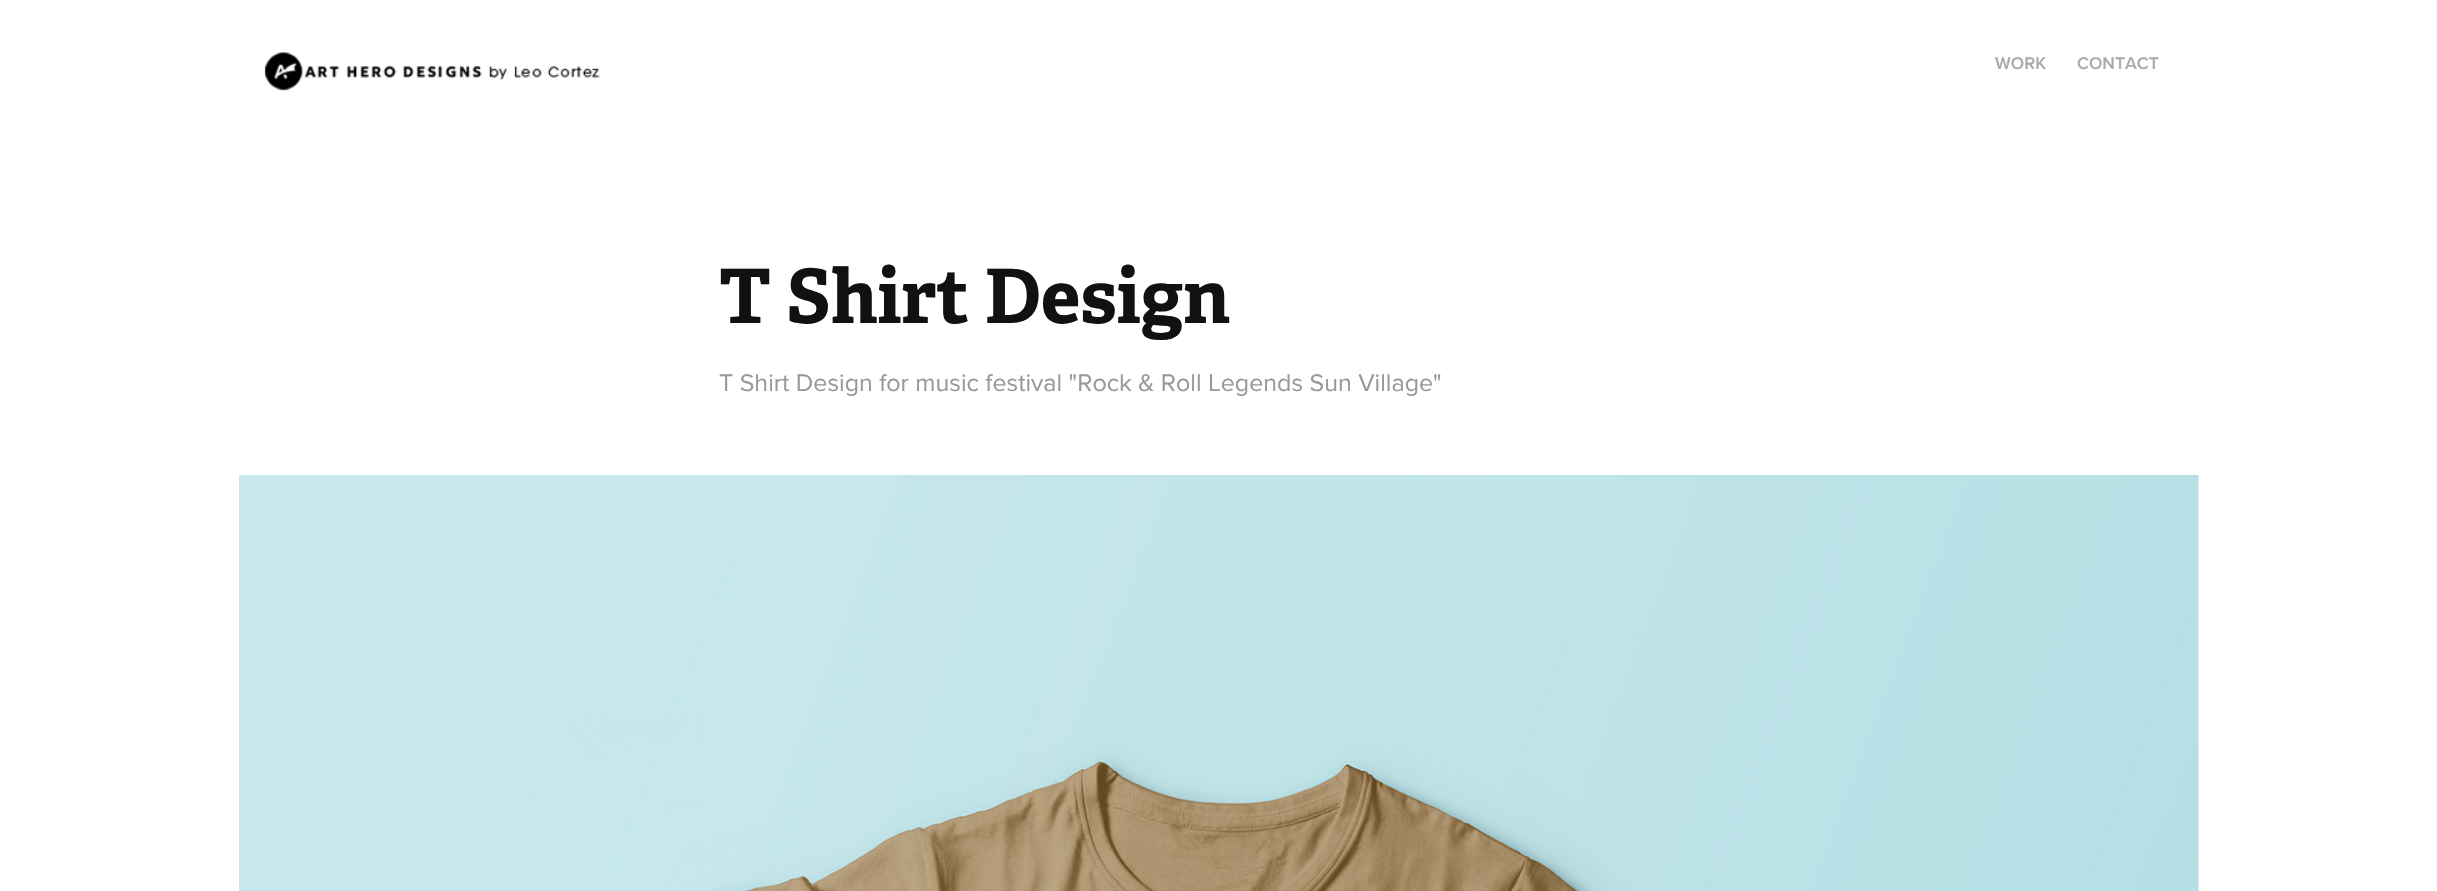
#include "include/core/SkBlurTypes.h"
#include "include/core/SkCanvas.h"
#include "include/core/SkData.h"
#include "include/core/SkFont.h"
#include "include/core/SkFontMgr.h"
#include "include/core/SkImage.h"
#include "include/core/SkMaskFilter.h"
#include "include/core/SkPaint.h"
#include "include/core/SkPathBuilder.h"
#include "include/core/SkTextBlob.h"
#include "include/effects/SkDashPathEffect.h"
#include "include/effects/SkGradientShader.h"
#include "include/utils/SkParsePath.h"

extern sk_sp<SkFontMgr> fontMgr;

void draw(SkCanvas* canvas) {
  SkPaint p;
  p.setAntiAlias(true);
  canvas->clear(SK_ColorWHITE);
  canvas->drawImageRect(SkImages::DeferredFromEncodedData(SkData::MakeFromFileName("images/1.png")), SkRect::MakeLTRB(264, 52, 600, 91), SkSamplingOptions());
  canvas->drawImageRect(SkImages::DeferredFromEncodedData(SkData::MakeFromFileName("images/2.png")), SkRect::MakeLTRB(239, 475, 2199, 891), SkSamplingOptions());
  SkFont font1(fontMgr->matchFamilyStyle("Proxima Nova", SkFontStyle(600, SkFontStyle::kNormal_Width, SkFontStyle::kUpright_Slant)), 17.5f);
  font1.setSubpixel(true);
  p.setColor(SkColorSetRGB(170, 170, 170));
  canvas->drawString("WORK", 1995, 69, font1, p);
  canvas->drawString("CONTACT", 2077, 69, font1, p);
  SkFont font2(fontMgr->matchFamilyStyle("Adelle", SkFontStyle::Bold()), 75);
  font2.setSubpixel(true);
  p.setColor(SkColorSetRGB(17, 17, 17));
  canvas->drawString("T Shirt Design", 719, 323, font2, p);
  SkFont font3(fontMgr->matchFamilyStyle("Proxima Nova", SkFontStyle::Normal()), 25);
  font3.setSubpixel(true);
  p.setColor(SkColorSetRGB(153, 153, 153));
  canvas->drawString("T Shirt Design for music festival \"Rock & Roll Legends Sun Village\"", 719, 391, font3, p);
}
